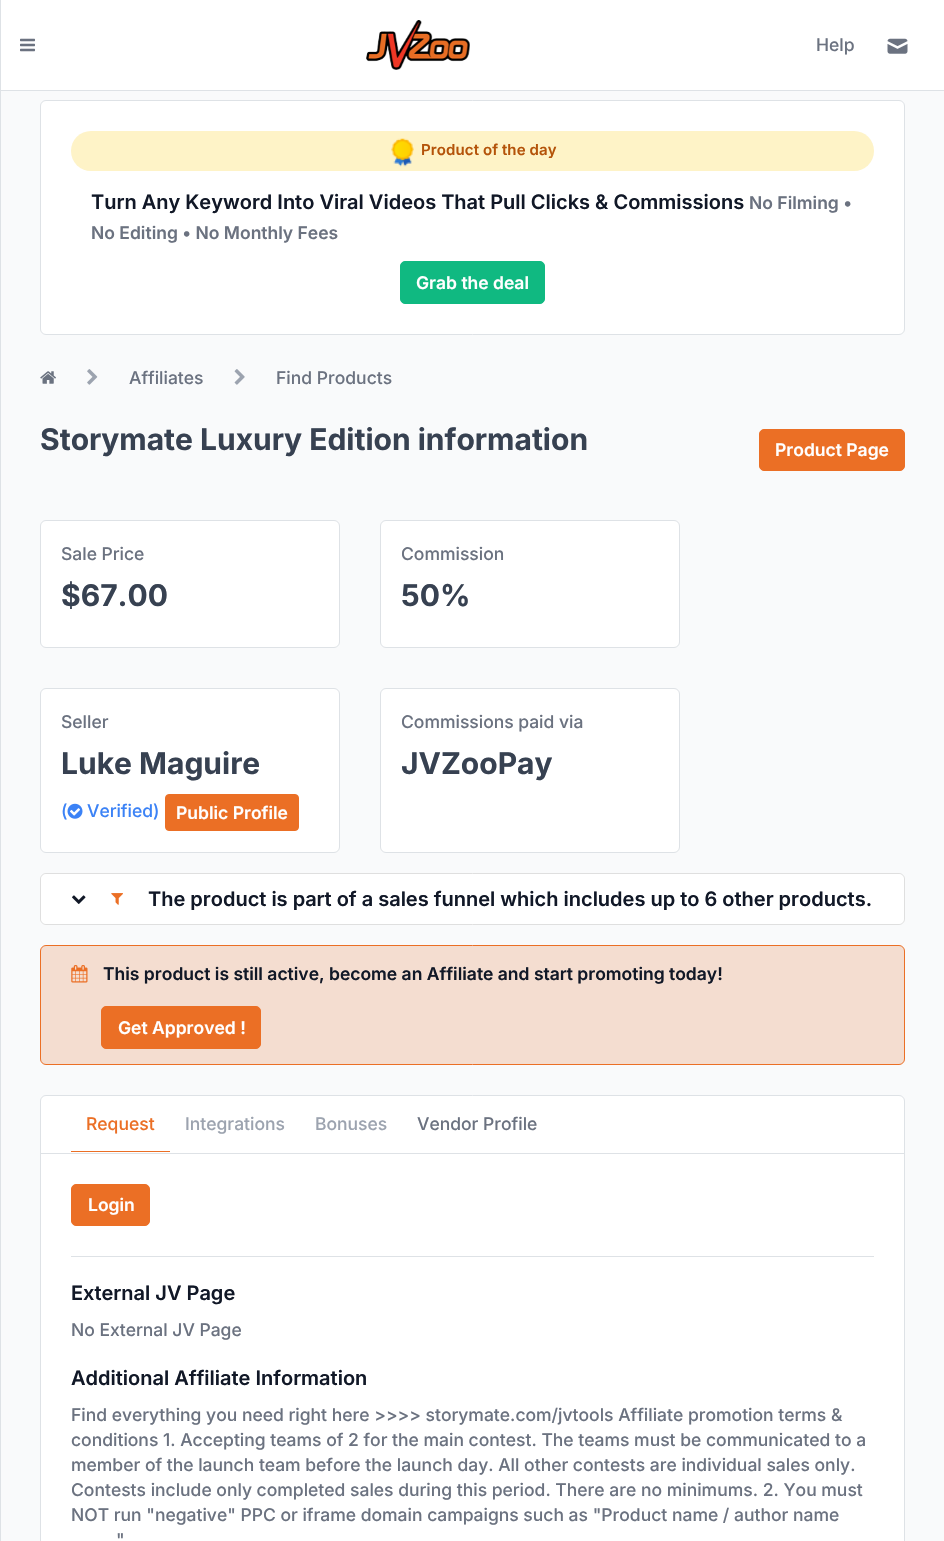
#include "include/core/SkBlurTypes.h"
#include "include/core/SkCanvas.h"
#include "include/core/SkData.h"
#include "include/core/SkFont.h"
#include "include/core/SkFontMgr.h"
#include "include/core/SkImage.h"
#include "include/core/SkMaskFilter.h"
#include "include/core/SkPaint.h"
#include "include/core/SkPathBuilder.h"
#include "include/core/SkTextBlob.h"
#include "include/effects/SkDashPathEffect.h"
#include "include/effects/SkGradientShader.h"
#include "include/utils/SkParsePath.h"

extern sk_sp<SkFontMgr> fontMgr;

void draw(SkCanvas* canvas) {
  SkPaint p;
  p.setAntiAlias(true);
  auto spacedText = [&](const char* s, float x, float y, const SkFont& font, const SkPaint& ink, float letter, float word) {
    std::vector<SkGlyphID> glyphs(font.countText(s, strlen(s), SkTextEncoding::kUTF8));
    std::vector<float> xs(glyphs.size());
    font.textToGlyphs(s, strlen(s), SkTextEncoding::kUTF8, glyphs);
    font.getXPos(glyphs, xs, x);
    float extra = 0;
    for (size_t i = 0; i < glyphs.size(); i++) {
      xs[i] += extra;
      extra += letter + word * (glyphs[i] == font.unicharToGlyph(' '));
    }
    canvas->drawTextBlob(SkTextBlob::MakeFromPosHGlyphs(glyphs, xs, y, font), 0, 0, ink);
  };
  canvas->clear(SkColorSetRGB(249, 250, 251));
  p.setColor(SkColorSetRGB(222, 226, 230));
  canvas->drawRect(SkRect::MakeLTRB(0, 90, 944, 91), p);
  canvas->drawRect(SkRect::MakeLTRB(0, 0, 1, 1541), p);
  p.setColor(SK_ColorWHITE);
  canvas->drawRect(SkRect::MakeLTRB(1, 0, 944, 90), p);
  canvas->drawImageRect(SkImages::DeferredFromEncodedData(SkData::MakeFromFileName("images/1.png")), SkRect::MakeLTRB(20, 38, 35, 52), SkSamplingOptions());
  canvas->drawImageRect(SkImages::DeferredFromEncodedData(SkData::MakeFromFileName("images/2.png")), SkRect::MakeLTRB(366, 20, 470, 70), SkSamplingOptions());
  canvas->drawImageRect(SkImages::DeferredFromEncodedData(SkData::MakeFromFileName("images/3.png")), SkRect::MakeLTRB(887, 38, 908, 54), SkSamplingOptions());
  canvas->drawRoundRect(SkRect::MakeLTRB(40.5f, 100.5f, 904.5f, 334.5f), 5.5f, 5.5f, p);
  p.setStyle(SkPaint::kStroke_Style);
  p.setStrokeWidth(1);
  p.setColor(SkColorSetRGB(222, 226, 230));
  canvas->drawRoundRect(SkRect::MakeLTRB(40.5f, 100.5f, 904.5f, 334.5f), 5.5f, 5.5f, p);
  p.setStyle(SkPaint::kFill_Style);
  p.setColor(SkColorSetRGB(254, 243, 199));
  canvas->drawRoundRect(SkRect::MakeLTRB(71, 131, 874, 171), 20, 20, p);
  canvas->drawImageRect(SkImages::DeferredFromEncodedData(SkData::MakeFromFileName("images/4.png")), SkRect::MakeLTRB(391, 138, 414, 167), SkSamplingOptions());
  p.setColor(SkColorSetRGB(16, 185, 129));
  canvas->drawRoundRect(SkRect::MakeLTRB(400.5f, 261.5f, 544.5f, 303.5f), 4.5f, 4.5f, p);
  p.setStyle(SkPaint::kStroke_Style);
  canvas->drawRoundRect(SkRect::MakeLTRB(400.5f, 261.5f, 544.5f, 303.5f), 4.5f, 4.5f, p);
  canvas->drawImageRect(SkImages::DeferredFromEncodedData(SkData::MakeFromFileName("images/5.png")), SkRect::MakeLTRB(40, 371, 56, 384), SkSamplingOptions());
  canvas->drawImageRect(SkImages::DeferredFromEncodedData(SkData::MakeFromFileName("images/6.png")), SkRect::MakeLTRB(87, 369, 98, 385), SkSamplingOptions());
  canvas->drawImageRect(SkImages::DeferredFromEncodedData(SkData::MakeFromFileName("images/7.png")), SkRect::MakeLTRB(234, 369, 245, 385), SkSamplingOptions());
  p.setStyle(SkPaint::kFill_Style);
  p.setColor(SkColorSetRGB(235, 111, 37));
  canvas->drawRoundRect(SkRect::MakeLTRB(759.5f, 429.5f, 904.5f, 470.5f), 4.5f, 4.5f, p);
  p.setStyle(SkPaint::kStroke_Style);
  canvas->drawRoundRect(SkRect::MakeLTRB(759.5f, 429.5f, 904.5f, 470.5f), 4.5f, 4.5f, p);
  p.setStyle(SkPaint::kFill_Style);
  p.setColor(SK_ColorWHITE);
  canvas->drawRoundRect(SkRect::MakeLTRB(40.5f, 520.5f, 339.5f, 647.5f), 5.5f, 5.5f, p);
  p.setStyle(SkPaint::kStroke_Style);
  p.setColor(SkColorSetRGB(222, 226, 230));
  canvas->drawRoundRect(SkRect::MakeLTRB(40.5f, 520.5f, 339.5f, 647.5f), 5.5f, 5.5f, p);
  p.setStyle(SkPaint::kFill_Style);
  p.setColor(SK_ColorWHITE);
  canvas->drawRoundRect(SkRect::MakeLTRB(380.5f, 520.5f, 679.5f, 647.5f), 5.5f, 5.5f, p);
  p.setStyle(SkPaint::kStroke_Style);
  p.setColor(SkColorSetRGB(222, 226, 230));
  canvas->drawRoundRect(SkRect::MakeLTRB(380.5f, 520.5f, 679.5f, 647.5f), 5.5f, 5.5f, p);
  p.setStyle(SkPaint::kFill_Style);
  p.setColor(SK_ColorWHITE);
  canvas->drawRoundRect(SkRect::MakeLTRB(40.5f, 688.5f, 339.5f, 852.5f), 5.5f, 5.5f, p);
  p.setStyle(SkPaint::kStroke_Style);
  p.setColor(SkColorSetRGB(222, 226, 230));
  canvas->drawRoundRect(SkRect::MakeLTRB(40.5f, 688.5f, 339.5f, 852.5f), 5.5f, 5.5f, p);
  canvas->drawImageRect(SkImages::DeferredFromEncodedData(SkData::MakeFromFileName("images/8.png")), SkRect::MakeLTRB(67, 803, 83, 819), SkSamplingOptions());
  p.setStyle(SkPaint::kFill_Style);
  p.setColor(SkColorSetRGB(235, 111, 37));
  canvas->drawRoundRect(SkRect::MakeLTRB(165.5f, 794.5f, 298.5f, 830.5f), 3.5f, 3.5f, p);
  p.setStyle(SkPaint::kStroke_Style);
  canvas->drawRoundRect(SkRect::MakeLTRB(165.5f, 794.5f, 298.5f, 830.5f), 3.5f, 3.5f, p);
  p.setStyle(SkPaint::kFill_Style);
  p.setColor(SK_ColorWHITE);
  canvas->drawRoundRect(SkRect::MakeLTRB(380.5f, 688.5f, 679.5f, 852.5f), 5.5f, 5.5f, p);
  p.setStyle(SkPaint::kStroke_Style);
  p.setColor(SkColorSetRGB(222, 226, 230));
  canvas->drawRoundRect(SkRect::MakeLTRB(380.5f, 688.5f, 679.5f, 852.5f), 5.5f, 5.5f, p);
  p.setStyle(SkPaint::kFill_Style);
  p.setColor(SK_ColorWHITE);
  canvas->drawRoundRect(SkRect::MakeLTRB(40.5f, 873.5f, 904.5f, 924.5f), 5.5f, 5.5f, p);
  p.setStyle(SkPaint::kStroke_Style);
  p.setColor(SkColorSetRGB(223, 223, 223));
  canvas->drawRoundRect(SkRect::MakeLTRB(40.5f, 873.5f, 904.5f, 924.5f), 5.5f, 5.5f, p);
  p.setStyle(SkPaint::kFill_Style);
  p.setColor(SK_ColorWHITE);
  canvas->drawRoundRect(SkRect::MakeLTRB(41, 874, 904, 924), 6, 6, p);
  canvas->drawImageRect(SkImages::DeferredFromEncodedData(SkData::MakeFromFileName("images/9.png")), SkRect::MakeLTRB(72, 895, 86, 904), SkSamplingOptions());
  canvas->drawImageRect(SkImages::DeferredFromEncodedData(SkData::MakeFromFileName("images/10.png")), SkRect::MakeLTRB(111, 893, 123, 905), SkSamplingOptions());
  p.setColor(SkColorSetRGB(244, 221, 208));
  canvas->drawRoundRect(SkRect::MakeLTRB(40.5f, 945.5f, 904.5f, 1064.5f), 5.5f, 5.5f, p);
  p.setStyle(SkPaint::kStroke_Style);
  p.setColor(SkColorSetRGB(235, 111, 37));
  canvas->drawRoundRect(SkRect::MakeLTRB(40.5f, 945.5f, 904.5f, 1064.5f), 5.5f, 5.5f, p);
  canvas->drawImageRect(SkImages::DeferredFromEncodedData(SkData::MakeFromFileName("images/11.png")), SkRect::MakeLTRB(71, 965, 88, 983), SkSamplingOptions());
  p.setStyle(SkPaint::kFill_Style);
  canvas->drawRoundRect(SkRect::MakeLTRB(101.5f, 1006.5f, 260.5f, 1048.5f), 4.5f, 4.5f, p);
  p.setStyle(SkPaint::kStroke_Style);
  canvas->drawRoundRect(SkRect::MakeLTRB(101.5f, 1006.5f, 260.5f, 1048.5f), 4.5f, 4.5f, p);
  p.setStyle(SkPaint::kFill_Style);
  p.setColor(SK_ColorWHITE);
  canvas->drawRoundRect(SkRect::MakeLTRB(40.5f, 1095.5f, 904.5f, 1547.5f), 5.5f, 5.5f, p);
  p.setStyle(SkPaint::kStroke_Style);
  p.setColor(SkColorSetRGB(222, 226, 230));
  canvas->drawRoundRect(SkRect::MakeLTRB(40.5f, 1095.5f, 904.5f, 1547.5f), 5.5f, 5.5f, p);
  p.setStyle(SkPaint::kFill_Style);
  canvas->drawRect(SkRect::MakeLTRB(41, 1153, 904, 1154), p);
  p.setColor(SkColorSetRGB(235, 111, 37));
  canvas->drawRect(SkRect::MakeLTRB(71, 1151, 170, 1152), p);
  canvas->drawRoundRect(SkRect::MakeLTRB(71.5f, 1184.5f, 149.5f, 1225.5f), 4.5f, 4.5f, p);
  p.setStyle(SkPaint::kStroke_Style);
  canvas->drawRoundRect(SkRect::MakeLTRB(71.5f, 1184.5f, 149.5f, 1225.5f), 4.5f, 4.5f, p);
  p.setStyle(SkPaint::kFill_Style);
  p.setColor(SkColorSetRGB(222, 226, 230));
  canvas->drawRect(SkRect::MakeLTRB(71, 1256, 874, 1257), p);
  SkFont font1(fontMgr->matchFamilyStyle("Inter", SkFontStyle(500, SkFontStyle::kNormal_Width, SkFontStyle::kUpright_Slant)), 17.5f);
  font1.setSubpixel(true);
  p.setColor(SkColorSetRGB(107, 114, 128));
  canvas->drawString("Help", 816, 51, font1, p);
  SkFont font2(fontMgr->matchFamilyStyle("Inter", SkFontStyle(600, SkFontStyle::kNormal_Width, SkFontStyle::kUpright_Slant)), 15);
  font2.setSubpixel(true);
  p.setColor(SkColorSetRGB(180, 83, 9));
  spacedText("Product of the day", 421, 155, font2, p, 0.1f, 0);
  SkFont font3(fontMgr->matchFamilyStyle("Inter", SkFontStyle(600, SkFontStyle::kNormal_Width, SkFontStyle::kUpright_Slant)), 20);
  font3.setSubpixel(true);
  p.setColor(SkColorSetRGB(17, 24, 39));
  canvas->drawString("Turn Any Keyword Into Viral Videos That Pull Clicks & Commissions", 91, 209, font3, p);
  SkFont font4(fontMgr->matchFamilyStyle("Inter", SkFontStyle(600, SkFontStyle::kNormal_Width, SkFontStyle::kUpright_Slant)), 17.5f);
  font4.setSubpixel(true);
  p.setColor(SkColorSetRGB(107, 114, 128));
  canvas->drawString("No Filming •", 749, 209, font4, p);
  canvas->drawString("No Editing • No Monthly Fees", 91, 239, font4, p);
  p.setColor(SK_ColorWHITE);
  canvas->drawString("Grab the deal", 416, 289, font4, p);
  p.setColor(SkColorSetRGB(107, 114, 128));
  canvas->drawString("Affiliates", 129, 384, font1, p);
  canvas->drawString("Find Products", 276, 384, font1, p);
  SkFont font5(fontMgr->matchFamilyStyle("Inter", SkFontStyle::Bold()), 30);
  font5.setSubpixel(true);
  p.setColor(SkColorSetRGB(55, 65, 81));
  canvas->drawString("Storymate Luxury Edition information", 40, 450, font5, p);
  p.setColor(SK_ColorWHITE);
  canvas->drawString("Product Page", 775, 456, font4, p);
  p.setColor(SkColorSetRGB(107, 114, 128));
  canvas->drawString("Sale Price", 61, 560, font1, p);
  p.setColor(SkColorSetRGB(55, 65, 81));
  canvas->drawString("$67.00", 61, 606, font5, p);
  p.setColor(SkColorSetRGB(107, 114, 128));
  canvas->drawString("Commission", 401, 560, font1, p);
  p.setColor(SkColorSetRGB(55, 65, 81));
  canvas->drawString("50%", 401, 606, font5, p);
  p.setColor(SkColorSetRGB(107, 114, 128));
  canvas->drawString("Seller", 61, 728, font1, p);
  p.setColor(SkColorSetRGB(55, 65, 81));
  canvas->drawString("Luke Maguire", 61, 774, font5, p);
  p.setColor(SkColorSetRGB(59, 130, 246));
  canvas->drawString("(", 61, 817, font1, p);
  canvas->drawString("Verified)", 87, 817, font1, p);
  p.setColor(SK_ColorWHITE);
  canvas->drawString("Public Profile", 176, 819, font4, p);
  p.setColor(SkColorSetRGB(107, 114, 128));
  canvas->drawString("Commissions paid via", 401, 728, font1, p);
  p.setColor(SkColorSetRGB(55, 65, 81));
  canvas->drawString("JVZooPay", 401, 774, font5, p);
  p.setColor(SkColorSetRGB(17, 24, 39));
  canvas->drawString("The product is part of a sales funnel which includes up to 6 other products.", 148, 906, font3, p);
  canvas->drawString("This product is still active, become an Affiliate and start promoting today!", 103, 980, font4, p);
  p.setColor(SK_ColorWHITE);
  canvas->drawString("Get Approved !", 118, 1034, font4, p);
  p.setColor(SkColorSetRGB(235, 111, 37));
  canvas->drawString("Request", 86, 1130, font1, p);
  p.setColor(SkColorSetRGB(156, 163, 175));
  canvas->drawString("Integrations", 185, 1130, font1, p);
  canvas->drawString("Bonuses", 315, 1130, font1, p);
  p.setColor(SkColorSetRGB(107, 114, 128));
  canvas->drawString("Vendor Profile", 417, 1130, font1, p);
  p.setColor(SK_ColorWHITE);
  canvas->drawString("Login", 88, 1211, font4, p);
  p.setColor(SkColorSetRGB(17, 24, 39));
  canvas->drawString("External JV Page", 71, 1300, font3, p);
  p.setColor(SkColorSetRGB(107, 114, 128));
  canvas->drawString("No External JV Page", 71, 1336, font1, p);
  p.setColor(SkColorSetRGB(17, 24, 39));
  canvas->drawString("Additional Affiliate Information", 71, 1385, font3, p);
  p.setColor(SkColorSetRGB(107, 114, 128));
  canvas->drawString("Find everything you need right here >>>> storymate.com/jvtools Affiliate promotion terms &", 71, 1421, font1, p);
  canvas->drawString("conditions 1. Accepting teams of 2 for the main contest. The teams must be communicated to a", 71, 1446, font1, p);
  canvas->drawString("member of the launch team before the launch day. All other contests are individual sales only.", 71, 1471, font1, p);
  canvas->drawString("Contests include only completed sales during this period. There are no minimums. 2. You must", 71, 1496, font1, p);
  canvas->drawString("NOT run \"negative\" PPC or iframe domain campaigns such as \"Product name / author name", 71, 1521, font1, p);
  canvas->drawString("\"", 116, 1546, font1, p);
}
